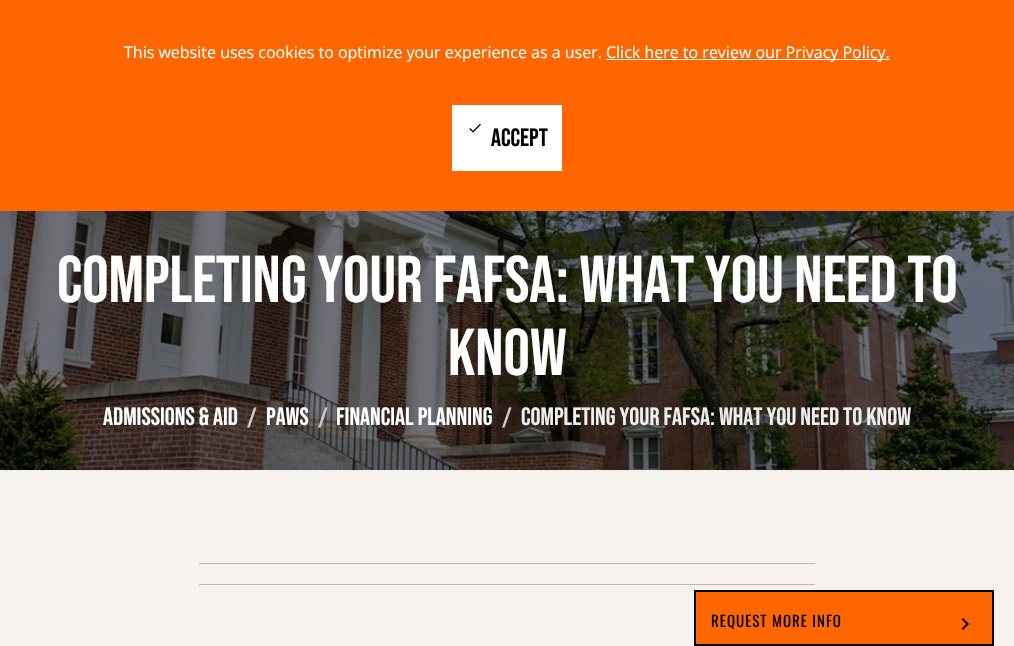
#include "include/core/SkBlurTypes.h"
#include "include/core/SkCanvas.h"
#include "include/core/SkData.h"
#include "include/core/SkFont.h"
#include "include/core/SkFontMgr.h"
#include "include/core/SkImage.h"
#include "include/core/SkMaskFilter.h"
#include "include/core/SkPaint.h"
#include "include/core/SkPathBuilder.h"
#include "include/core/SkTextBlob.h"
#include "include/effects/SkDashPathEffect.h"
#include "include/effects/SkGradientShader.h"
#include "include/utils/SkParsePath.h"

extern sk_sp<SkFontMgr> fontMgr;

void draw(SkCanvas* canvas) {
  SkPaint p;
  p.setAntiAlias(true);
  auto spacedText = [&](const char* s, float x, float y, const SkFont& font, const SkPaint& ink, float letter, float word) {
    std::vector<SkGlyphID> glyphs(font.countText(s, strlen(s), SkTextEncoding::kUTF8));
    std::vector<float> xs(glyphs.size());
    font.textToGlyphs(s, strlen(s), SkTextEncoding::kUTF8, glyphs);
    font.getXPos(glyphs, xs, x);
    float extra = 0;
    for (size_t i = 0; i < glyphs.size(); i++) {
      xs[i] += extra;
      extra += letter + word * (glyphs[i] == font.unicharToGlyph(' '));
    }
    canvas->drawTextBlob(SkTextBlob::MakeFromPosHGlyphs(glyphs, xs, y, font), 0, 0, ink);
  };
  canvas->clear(SkColorSetRGB(247, 242, 238));
  p.setColor(SkColorSetRGB(255, 102, 0));
  canvas->drawRect(SkRect::MakeLTRB(0, 0, 1014, 211), p);
  p.setColor(SK_ColorWHITE);
  canvas->drawRect(SkRect::MakeLTRB(606, 59, 890, 60), p);
  canvas->drawRect(SkRect::MakeLTRB(452, 105, 562, 171), p);
  canvas->drawImageRect(SkImages::DeferredFromEncodedData(SkData::MakeFromFileName("images/1.png")), SkRect::MakeLTRB(469, 123, 481, 133), SkSamplingOptions());
  canvas->drawImageRect(SkImages::DeferredFromEncodedData(SkData::MakeFromFileName("images/2.png")), SkRect::MakeLTRB(0, 211, 1014, 470), SkSamplingOptions());
  p.setColor(SkColorSetRGB(238, 238, 238));
  canvas->drawRect(SkRect::MakeLTRB(0, 470, 1014, 471), p);
  p.setColor(SkColorSetRGB(194, 181, 173));
  canvas->drawRect(SkRect::MakeLTRB(199, 563, 815, 564), p);
  canvas->drawRect(SkRect::MakeLTRB(199, 584, 815, 585), p);
  p.setColor(SkColorSetRGB(255, 102, 0));
  canvas->drawRect(SkRect::MakeLTRB(695, 591, 993, 645), p);
  p.setStyle(SkPaint::kStroke_Style);
  p.setStrokeWidth(2);
  p.setColor(SK_ColorBLACK);
  canvas->drawRect(SkRect::MakeLTRB(695, 591, 993, 645), p);
  canvas->drawImageRect(SkImages::DeferredFromEncodedData(SkData::MakeFromFileName("images/3.png")), SkRect::MakeLTRB(961, 618, 969, 630), SkSamplingOptions());
  SkFont font1(fontMgr->matchFamilyStyle("Open Sans", SkFontStyle::Normal()), 16);
  font1.setSubpixel(true);
  p.setStyle(SkPaint::kFill_Style);
  p.setColor(SK_ColorWHITE);
  canvas->drawString("This website uses cookies to optimize your experience as a user.", 124, 58, font1, p);
  canvas->drawString("Click here to review our Privacy Policy.", 606, 58, font1, p);
  SkFont font2(fontMgr->matchFamilyStyle("Bebas Neue", SkFontStyle::Bold()), 25);
  font2.setSubpixel(true);
  p.setColor(SK_ColorBLACK);
  canvas->drawString("ACCEPT", 491, 146, font2, p);
  SkFont font3(fontMgr->matchFamilyStyle("Bebas Neue", SkFontStyle::Bold()), 66);
  font3.setSubpixel(true);
  p.setColor(SK_ColorWHITE);
  canvas->drawString("COMPLETING YOUR FAFSA: WHAT YOU NEED TO", 57, 302, font3, p);
  canvas->drawString("KNOW", 448, 375, font3, p);
  canvas->drawString("ADMISSIONS & AID", 103, 425, font2, p);
  p.setColor(SkColorSetRGB(204, 204, 204));
  canvas->drawString("/", 247, 425, font2, p);
  p.setColor(SK_ColorWHITE);
  canvas->drawString("PAWS", 266, 425, font2, p);
  p.setColor(SkColorSetRGB(204, 204, 204));
  canvas->drawString("/", 318, 425, font2, p);
  p.setColor(SK_ColorWHITE);
  canvas->drawString("FINANCIAL PLANNING", 336, 425, font2, p);
  p.setColor(SkColorSetRGB(204, 204, 204));
  canvas->drawString("/", 502, 425, font2, p);
  p.setColor(SkColorSetRGB(238, 238, 238));
  canvas->drawString("COMPLETING YOUR FAFSA: WHAT YOU NEED TO KNOW", 521, 425, font2, p);
  SkFont font4(fontMgr->matchFamilyStyle("Oswald", SkFontStyle::Normal()), 15);
  font4.setSubpixel(true);
  p.setColor(SK_ColorBLACK);
  spacedText("REQUEST MORE INFO", 711, 627, font4, p, 1, 0);
}
